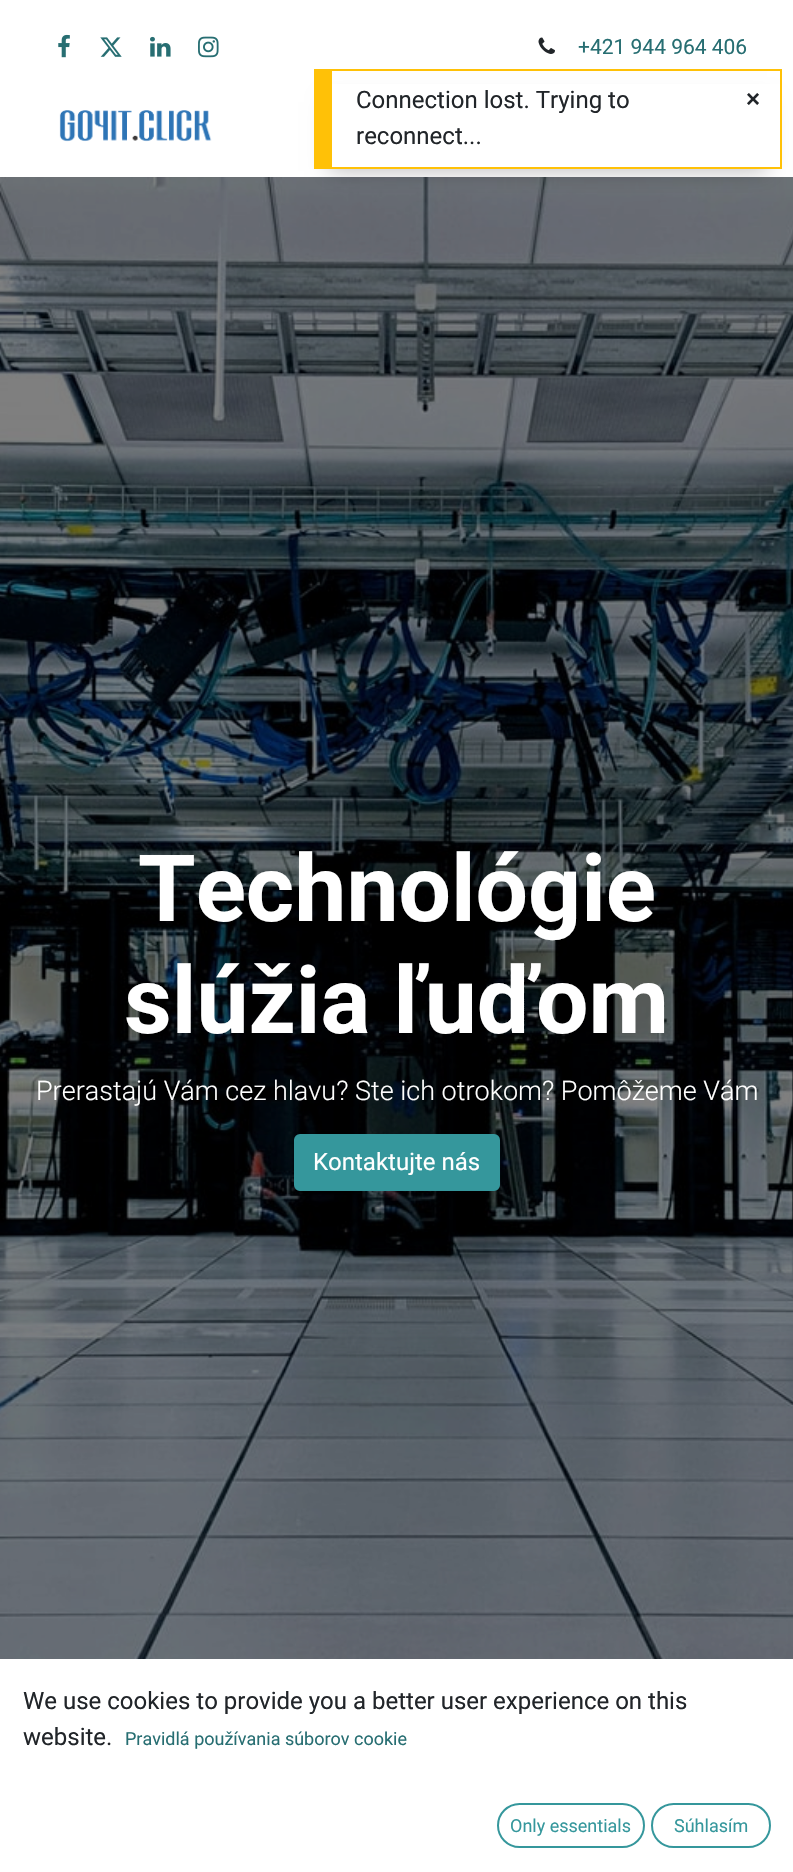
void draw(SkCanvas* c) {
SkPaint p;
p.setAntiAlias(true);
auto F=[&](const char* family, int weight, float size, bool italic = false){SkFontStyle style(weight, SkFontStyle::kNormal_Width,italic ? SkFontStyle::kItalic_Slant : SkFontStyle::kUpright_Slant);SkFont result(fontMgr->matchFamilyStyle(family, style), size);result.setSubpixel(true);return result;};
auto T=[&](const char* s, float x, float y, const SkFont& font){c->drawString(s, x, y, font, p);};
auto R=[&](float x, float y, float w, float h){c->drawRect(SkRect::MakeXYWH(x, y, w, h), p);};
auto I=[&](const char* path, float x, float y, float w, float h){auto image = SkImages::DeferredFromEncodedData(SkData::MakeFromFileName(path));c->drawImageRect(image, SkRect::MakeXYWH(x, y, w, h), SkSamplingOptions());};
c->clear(0xffffffff);
I("1.png",58,34,12,24);
I("2.png",100,37,22,20);
I("3.png",150,36,21,21);
I("4.png",198,36,21,22);
I("5.png",538,37,17,17);
auto f1 = F("Roboto",400,21);
p.setColor(0xff276e72);
T("+421 944 964 406",578,54,f1);
I("6.png",59,110,153,32);
I("7.png",0,177,793,1482);
auto f2 = F("Roboto",700,93);
p.setColor(0xffffffff);
T("Technológie",138,921,f2);
T("slúžia ľuďom",124,1033,f2);
auto f3 = F("Roboto",300,27);
T("Prerastajú Vám cez hlavu? Ste ich otrokom? Pomôžeme Vám",36,1100,f3);
p.setColor(0xff35979c);
c->drawRoundRect(SkRect::MakeXYWH(295,1135,204,55),5,5,p);
p.setStroke(true);
p.setStrokeWidth(2);
c->drawRoundRect(SkRect::MakeXYWH(295,1135,204,55),5,5,p);
auto f4 = F("Roboto",400,24);
p.setStroke(false);
p.setColor(0xffffffff);
T("Kontaktujte nás",313,1170,f4);
p.setColor(0xff212529);
T("We use cookies to provide you a better user experience on this",23,1709,f4);
T("website.",23,1745,f4);
auto f5 = F("Roboto",400,18);
p.setColor(0xff276e72);
T("Pravidlá používania súborov cookie",125,1745,f5);
p.setStroke(true);
p.setColor(0xff35979c);
c->drawRoundRect(SkRect::MakeXYWH(498,1804,146,43),21.5,21.5,p);
p.setStroke(false);
T("Only essentials",510,1832,f5);
p.setStroke(true);
c->drawRoundRect(SkRect::MakeXYWH(652,1804,118,43),21.5,21.5,p);
p.setStroke(false);
T("Súhlasím",674,1832,f5);
p.setColor(0x40000000);
p.setMaskFilter(SkMaskFilter::MakeBlur(kNormal_SkBlurStyle, 10.5));
c->drawRect(SkRect::MakeXYWH(329,102,438,69),p);
p.setMaskFilter(nullptr);
p.setColor(0xffffffff);
R(332,84,448,83);
p.setColor(0xffffc107);
R(332,69,450,2);
R(780,69,2,99);
R(314,167,468,2);
R(314,69,18,98);
p.setColor(0xff212529);
T("Connection lost. Trying to",356,108,f4);
T("reconnect...",356,144,f4);
auto f6 = F("Liberation Sans",700,24);
T("×",746,107,f6);
}
